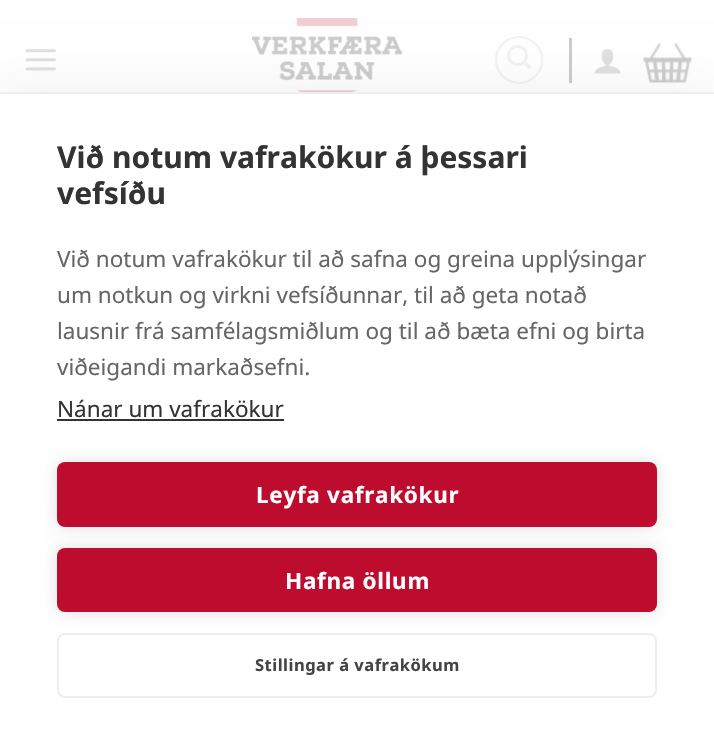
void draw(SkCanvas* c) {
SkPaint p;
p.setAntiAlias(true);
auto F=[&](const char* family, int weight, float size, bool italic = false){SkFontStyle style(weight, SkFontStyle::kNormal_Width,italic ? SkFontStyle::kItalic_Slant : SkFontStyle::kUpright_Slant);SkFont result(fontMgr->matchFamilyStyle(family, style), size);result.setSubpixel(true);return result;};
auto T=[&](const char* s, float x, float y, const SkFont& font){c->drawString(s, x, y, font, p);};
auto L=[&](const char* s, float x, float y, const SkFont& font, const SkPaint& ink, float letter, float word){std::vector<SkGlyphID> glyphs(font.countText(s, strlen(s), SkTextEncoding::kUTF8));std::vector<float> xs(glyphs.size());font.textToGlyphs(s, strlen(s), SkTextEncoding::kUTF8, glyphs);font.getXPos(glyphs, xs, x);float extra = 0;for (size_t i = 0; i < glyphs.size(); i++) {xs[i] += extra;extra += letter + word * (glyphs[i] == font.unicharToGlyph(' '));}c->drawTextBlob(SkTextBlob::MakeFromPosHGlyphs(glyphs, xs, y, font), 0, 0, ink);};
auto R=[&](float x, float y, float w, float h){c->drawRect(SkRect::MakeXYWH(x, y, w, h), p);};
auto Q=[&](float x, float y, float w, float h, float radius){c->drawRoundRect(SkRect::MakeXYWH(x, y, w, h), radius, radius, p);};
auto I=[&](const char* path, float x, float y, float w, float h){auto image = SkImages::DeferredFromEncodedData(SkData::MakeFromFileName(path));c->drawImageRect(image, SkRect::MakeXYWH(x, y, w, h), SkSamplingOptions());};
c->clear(0xffffffff);
I("1.png",25,49,31,22);
I("2.png",252,18,150,74);
p.setStroke(true);
p.setStrokeWidth(2);
p.setColor(0xfff2f2f2);
c->drawCircle(519,60,23,p);
I("3.png",507,45,24,24);
p.setStroke(false);
p.setColor(0xffcccccc);
R(569,38,3,45);
I("4.png",594,49,27,25);
I("5.png",643,43,49,40);
p.setColor(0x1a000000);
p.setMaskFilter(SkMaskFilter::MakeBlur(kNormal_SkBlurStyle, 30));
c->drawRect(SkRect::MakeXYWH(0,107,714,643),p);
p.setMaskFilter(nullptr);
p.setColor(0xffffffff);
R(0,94,714,640);
p.setColor(0xffeeeeee);
R(0,92,714,2);
auto f1 = F("Noto Sans",700,30);
p.setColor(0xff333333);
T("Við notum vafrakökur á þessari",57,168,f1);
T("vefsíðu",57,204,f1);
auto f2 = F("Noto Sans",400,22.5);
p.setColor(0xff666666);
T("Við notum vafrakökur til að safna og greina upplýsingar",57,267,f2);
T("um notkun og virkni vefsíðunnar, til að geta notað",57,303,f2);
T("lausnir frá samfélagsmiðlum og til að bæta efni og birta",57,339,f2);
T("viðeigandi markaðsefni.",57,375,f2);
p.setColor(0xff333333);
T("Nánar um vafrakökur",57,417,f2);
R(57,419,227,2);
p.setColor(0x1f000000);
p.setMaskFilter(SkMaskFilter::MakeBlur(kNormal_SkBlurStyle, 7.5));
c->drawRoundRect(SkRect::MakeXYWH(57,462,600,65),8,8,p);
p.setMaskFilter(nullptr);
p.setColor(0xffbd0c2e);
Q(57,462,600,65,8);
auto f3 = F("Noto Sans",700,22.5);
p.setColor(0xffffffff);
L("Leyfa vafrakökur",256,503,f3,p,.7,0);
p.setColor(0x1f000000);
p.setMaskFilter(SkMaskFilter::MakeBlur(kNormal_SkBlurStyle, 7.5));
c->drawRoundRect(SkRect::MakeXYWH(57,548,600,64),8,8,p);
p.setMaskFilter(nullptr);
p.setColor(0xffbd0c2e);
Q(57,548,600,64,8);
p.setColor(0xffffffff);
L("Hafna öllum",285,589,f3,p,.7,0);
p.setStroke(true);
p.setColor(0xffeeeeee);
c->drawRoundRect(SkRect::MakeXYWH(58,634,598,63),7,7,p);
auto f4 = F("Noto Sans",700,16.5);
p.setStroke(false);
p.setColor(0xff444444);
L("Stillingar á vafrakökum",255,671,f4,p,.5,0);
}
